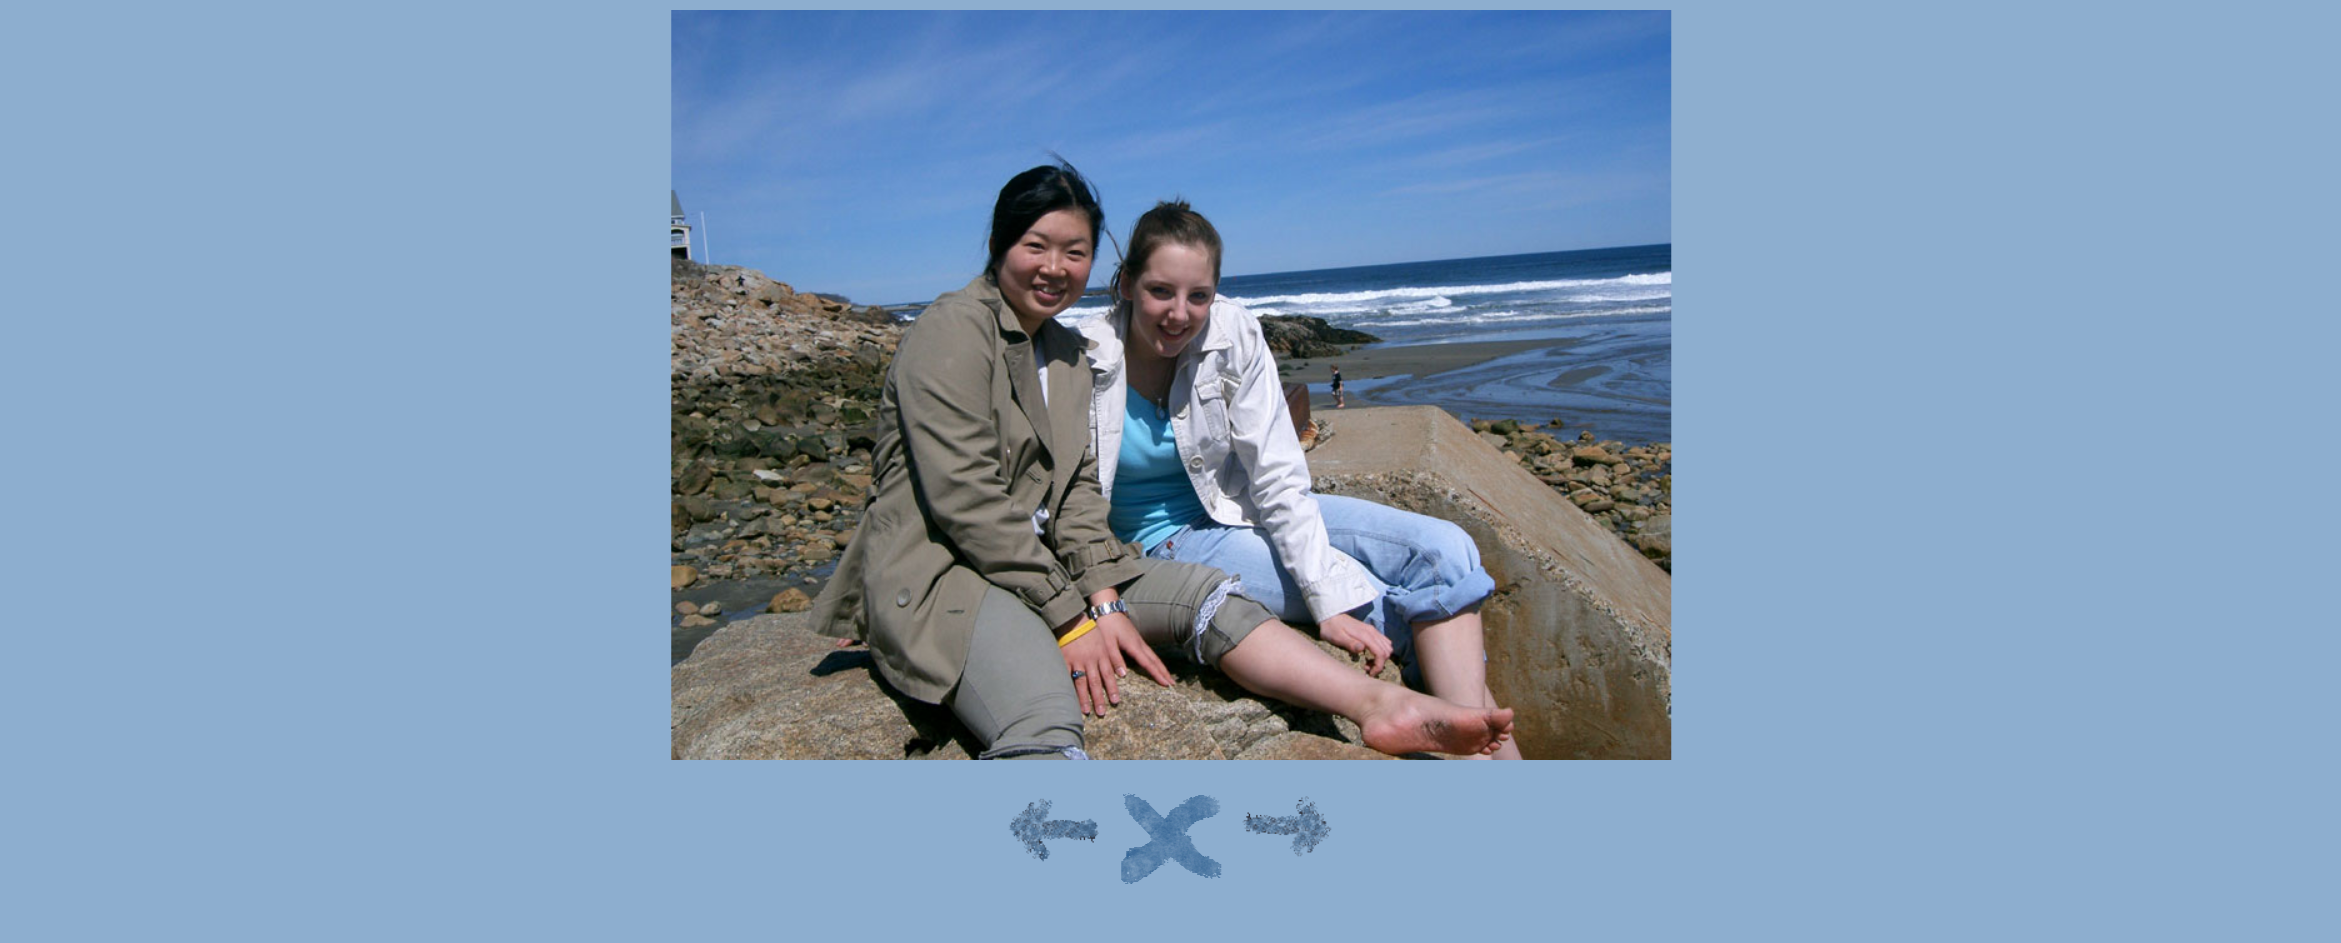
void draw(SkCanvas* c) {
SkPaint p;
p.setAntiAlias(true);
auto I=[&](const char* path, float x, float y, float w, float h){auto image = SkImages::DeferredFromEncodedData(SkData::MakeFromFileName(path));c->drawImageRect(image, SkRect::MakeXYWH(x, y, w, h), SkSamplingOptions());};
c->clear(0xff8daecf);
I("1.png",671,10,1001,750);
I("2.png",1008,798,91,64);
I("3.png",1121,793,101,91);
I("4.png",1242,796,90,61);
}
